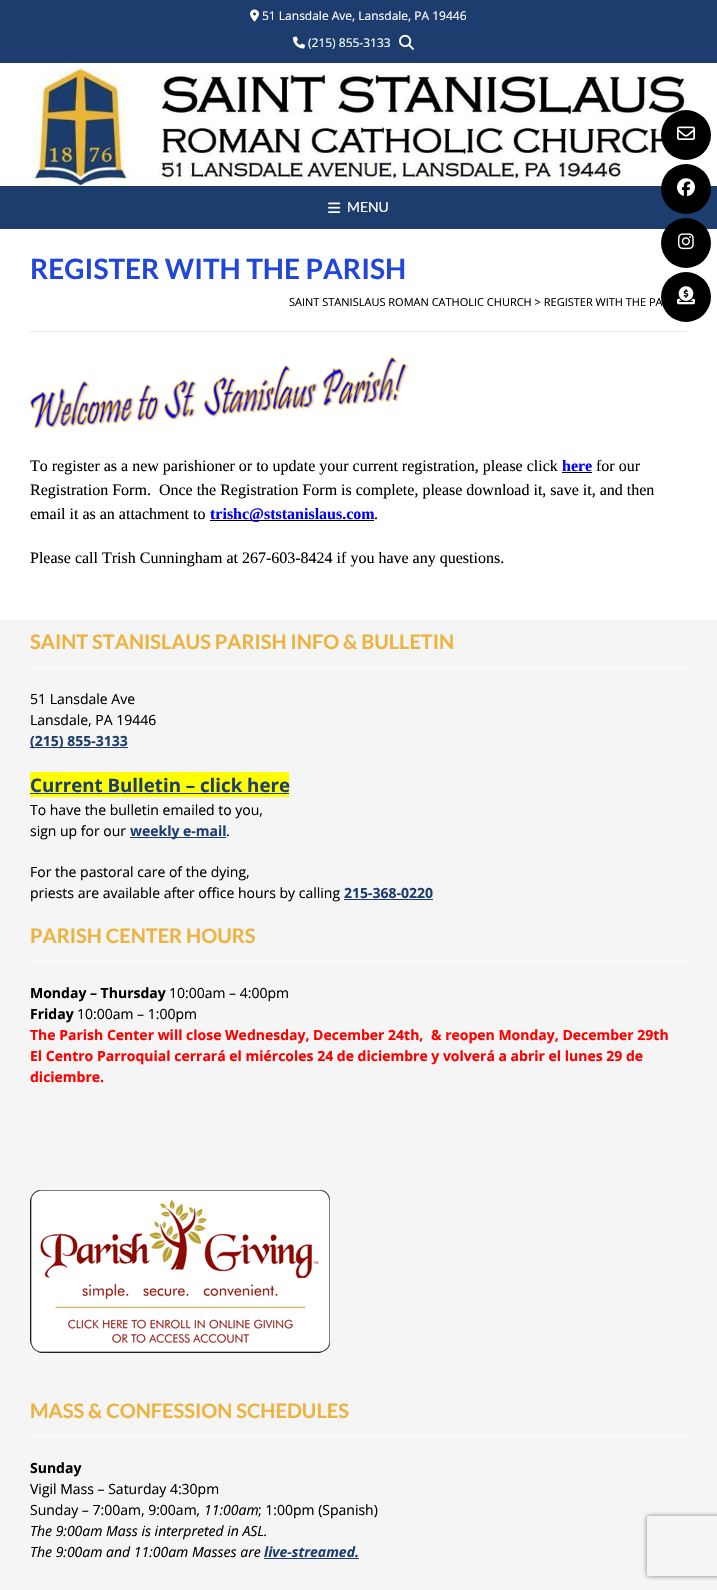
void draw(SkCanvas* c) {
SkPaint p;
p.setAntiAlias(true);
auto F=[&](const char* family, int weight, float size, bool italic = false){SkFontStyle style(weight, SkFontStyle::kNormal_Width,italic ? SkFontStyle::kItalic_Slant : SkFontStyle::kUpright_Slant);SkFont result(fontMgr->matchFamilyStyle(family, style), size);result.setSubpixel(true);return result;};
auto T=[&](const char* s, float x, float y, const SkFont& font){c->drawString(s, x, y, font, p);};
auto R=[&](float x, float y, float w, float h){c->drawRect(SkRect::MakeXYWH(x, y, w, h), p);};
auto I=[&](const char* path, float x, float y, float w, float h){auto image = SkImages::DeferredFromEncodedData(SkData::MakeFromFileName(path));c->drawImageRect(image, SkRect::MakeXYWH(x, y, w, h), SkSamplingOptions());};
auto P=[&](const char* data, bool evenOdd = false){SkPath result = *SkParsePath::FromSVGString(data);if (evenOdd) result.setFillType(SkPathFillType::kEvenOdd);return result;};
c->clear(0xffffffff);
p.setColor(0xff1d3d6e);
R(0,0,717,62);
p.setColor(0xff1b3865);
R(0,62,717,1);
I("1.png",250,9,9,13);
auto f1 = F("Open Sans",400,12);
p.setColor(0xffffffff);
T("51 Lansdale Ave, Lansdale, PA 19446",262,20,f1);
I("2.png",293,36,12,13);
T("(215) 855-3133",308,47,f1);
I("3.png",399,34,15,16);
I("4.png",30,63,657,123);
p.setColor(0xff1d3d6e);
R(0,187,717,42);
p.setColor(0xff1b3865);
R(0,186,717,1);
I("5.png",328,202,13,11);
auto f2 = F("Lato",400,14);
p.setColor(0xffffffff);
T("MENU",347,212,f2);
p.setColor(0xffebebeb);
R(30,331,657,1);
auto f3 = F("Lato",700,28);
p.setColor(0xff2247d8);
T("REGISTER WITH THE PARISH",30,279,f3);
auto f4 = F("Open Sans",400,11);
p.setColor(0xff000000);
T("SAINT STANISLAUS ROMAN CATHOLIC CHURCH > REGISTER WITH THE PA",289,306,f4);
I("6.png",30,357,378,72);
auto f5 = F("Liberation Serif",400,16);
T("To register as a new parishioner or to update your current registration, please click",30,471,f5);
auto f6 = F("Liberation Serif",700,16);
p.setColor(0xff0000ff);
T("here",562,471,f6);
p.setColor(0xff000000);
R(562,472,30,1);
T("for our",596,471,f5);
T("Registration Form.  Once the Registration Form is complete, please download it, save it, and then",30,495,f5);
T("email it as an attachment to",30,519,f5);
R(210,520,164,1);
p.setColor(0xff0000ff);
T("trishc@ststanislaus.com",210,519,f6);
p.setColor(0xff000000);
T(".",374,519,f5);
T("Please call Trish Cunningham at 267-603-8424 if you have any questions.",30,563,f5);
p.setColor(0xfff5f5f5);
R(0,620,717,970);
p.setColor(0xffffffff);
R(30,667,657,1);
auto f7 = F("Lato",700,20);
p.setColor(0xffedb33e);
T("SAINT STANISLAUS PARISH INFO & BULLETIN",30,649,f7);
auto f8 = F("Open Sans",400,14);
p.setColor(0xff000000);
T("51 Lansdale Ave",30,704,f8);
T("Lansdale, PA 19446",30,725,f8);
p.setColor(0xff1d3d6e);
R(30,747,98,1);
auto f9 = F("Open Sans",700,14);
T("(215) 855-3133",30,746,f9);
p.setColor(0xffffff00);
R(30,772,259,25);
auto f10 = F("Open Sans",700,18.7);
p.setColor(0xff1d3d6e);
T("Current Bulletin – click here",30,792,f10);
R(30,793,259,1);
p.setColor(0xff000000);
T("To have the bulletin emailed to you,",30,815,f8);
T("sign up for our",30,836,f8);
p.setColor(0xff1d3d6e);
R(130,837,96,1);
T("weekly e-mail",130,836,f9);
p.setColor(0xff000000);
T(".",226,836,f8);
T("For the pastoral care of the dying,",30,877,f8);
T("priests are available after office hours by calling",30,898,f8);
p.setColor(0xff1d3d6e);
T("215-368-0220",344,898,f9);
R(344,899,89,1);
p.setColor(0xffffffff);
R(30,961,657,1);
p.setColor(0xffedb33e);
T("PARISH CENTER HOURS",30,943,f7);
p.setColor(0xff000000);
T("Monday – Thursday",30,998,f9);
T("10:00am – 4:00pm",169,998,f8);
T("Friday",30,1019,f9);
T("10:00am – 1:00pm",77,1019,f8);
p.setColor(0xffff0000);
T("The Parish Center will close Wednesday, December 24th,",30,1040,f9);
T("& reopen Monday, December 29th",431,1040,f9);
T("El Centro Parroquial cerrará el miércoles 24 de diciembre y volverá a abrir el lunes 29 de",30,1061,f9);
T("diciembre.",30,1082,f9);
I("7.png",30,1190,300,163);
p.setColor(0xffffffff);
R(30,1436,657,1);
p.setColor(0xffedb33e);
T("MASS & CONFESSION SCHEDULES",30,1418,f7);
p.setColor(0xff000000);
T("Sunday",30,1473,f9);
T("Vigil Mass – Saturday 4:30pm",30,1494,f8);
T("Sunday – 7:00am, 9:00am",30,1515,f8);
auto f11 = F("Open Sans",400,14,true);
T(", 11:00am",197,1515,f11);
T("; 1:00pm (Spanish)",258,1515,f8);
T("The 9:00am Mass is interpreted in ASL.",30,1536,f11);
T("The 9:00am and 11:00am Masses are",30,1557,f11);
auto f12 = F("Open Sans",700,14,true);
p.setColor(0xff1d3d6e);
T("live-streamed.",264,1557,f12);
R(264,1558,95,1);
p.setColor(0xff000000);
c->drawCircle(686,135,25,p);
I("8.png",677,126,18,14);
c->drawCircle(686,189,25,p);
I("9.png",677,178,18,19);
c->drawCircle(686,243,25,p);
I("10.png",678,233,16,17);
c->drawCircle(686,297,25,p);
I("11.png",677,286,18,19);
c->save();
c->clipPath(P("M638 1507h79v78h-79zm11 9h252c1 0 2 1 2 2v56c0 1-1 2-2 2h-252c-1 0-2-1-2-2v-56c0-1 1-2 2-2z",true),true);
p.setColor(0xff808080);
p.setMaskFilter(SkMaskFilter::MakeBlur(kNormal_SkBlurStyle, 2.5));
c->drawRoundRect(SkRect::MakeXYWH(647,1516,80,60),2,2,p);
p.setMaskFilter(nullptr);
c->restore();
}
